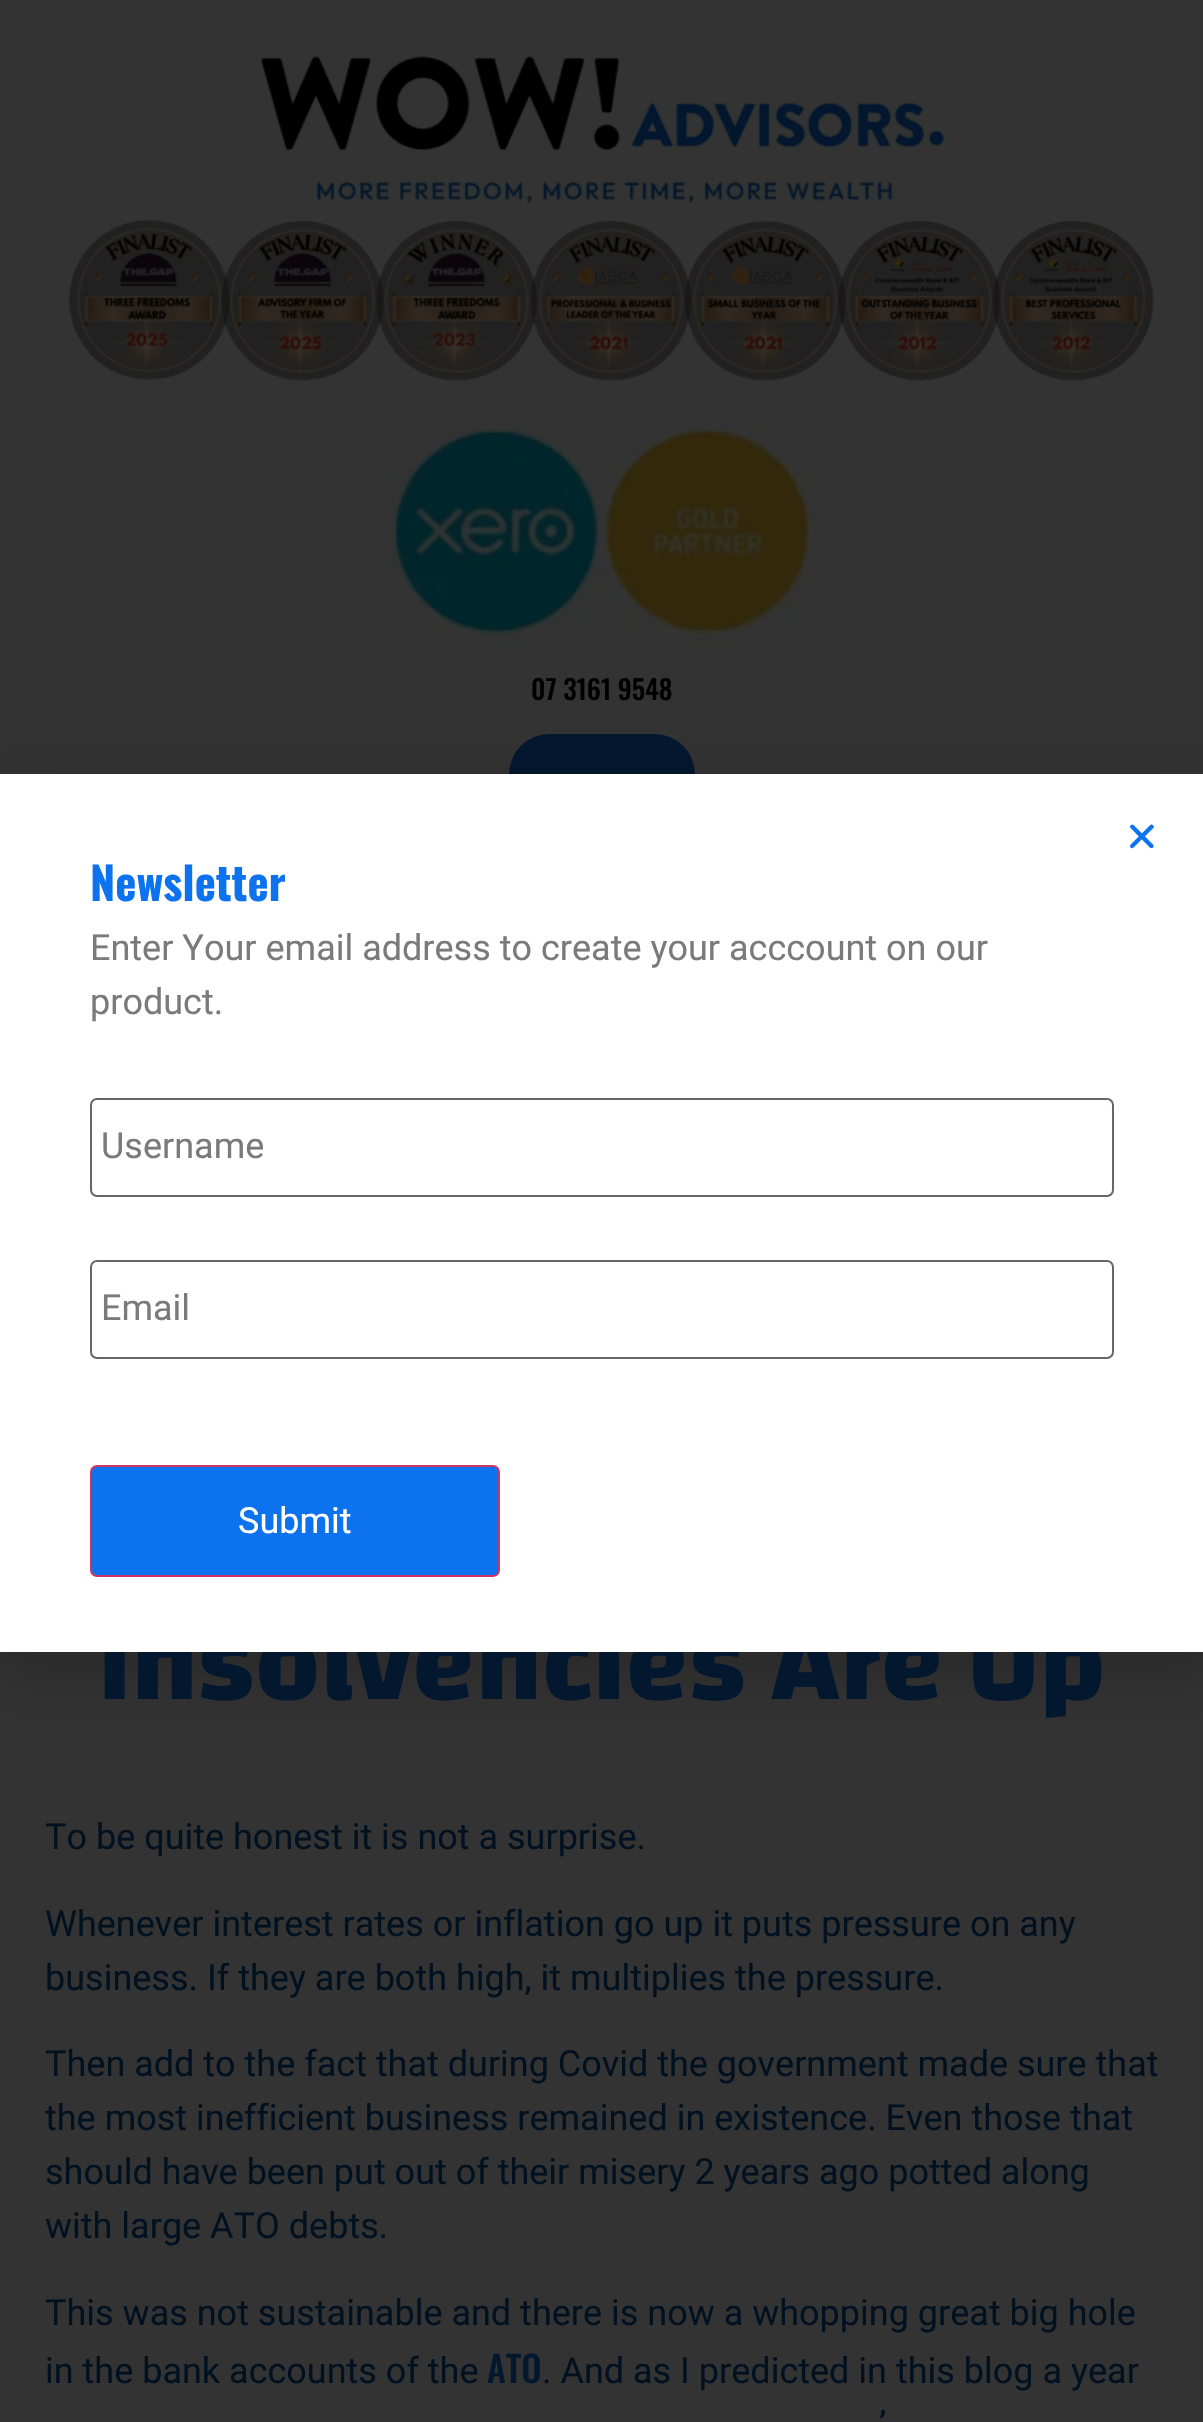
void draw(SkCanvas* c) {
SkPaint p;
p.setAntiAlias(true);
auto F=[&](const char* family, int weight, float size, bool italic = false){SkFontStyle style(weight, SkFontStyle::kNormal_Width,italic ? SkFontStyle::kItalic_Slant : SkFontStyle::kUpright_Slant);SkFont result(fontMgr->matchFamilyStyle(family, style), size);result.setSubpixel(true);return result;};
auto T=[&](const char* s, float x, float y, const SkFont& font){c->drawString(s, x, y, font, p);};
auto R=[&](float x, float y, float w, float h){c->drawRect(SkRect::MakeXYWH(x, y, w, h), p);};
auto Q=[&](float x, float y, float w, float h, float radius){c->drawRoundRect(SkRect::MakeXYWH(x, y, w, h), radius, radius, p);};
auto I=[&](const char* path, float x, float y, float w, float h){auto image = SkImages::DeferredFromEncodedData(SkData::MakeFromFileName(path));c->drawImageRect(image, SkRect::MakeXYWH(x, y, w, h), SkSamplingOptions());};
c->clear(0xff333333);
I("1.png",260,56,686,148);
I("2.png",68,219,1086,163);
I("3.png",388,424,426,224);
auto f1 = F("Oswald",500,27);
p.setColor(0xff000000);
T("07 3161 9548",531,700,f1);
p.setColor(0xff03172f);
Q(509,734,186,81,40.5);
p.setColor(0x33000000);
p.setMaskFilter(SkMaskFilter::MakeBlur(kNormal_SkBlurStyle, 26));
c->drawRect(SkRect::MakeXYWH(-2,785,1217,891),p);
p.setMaskFilter(nullptr);
auto f2 = F("Changa",700,112.5);
p.setColor(0xff03172f);
T("Insolvencies Are Up",98,1699,f2);
p.setColor(0xffffffff);
R(0,774,1203,878);
I("4.png",1130,824,24,25);
auto f3 = F("Oswald",700,45);
p.setColor(0xff0d72ed);
T("Newsletter",90,901,f3);
auto f4 = F("Roboto",400,36);
p.setColor(0xff7a7a7a);
T("Enter Your email address to create your acccount on our",90,960,f4);
T("product.",90,1014,f4);
p.setStroke(true);
p.setStrokeWidth(2);
p.setColor(0xff666666);
c->drawRoundRect(SkRect::MakeXYWH(91,1099,1022,97),6,6,p);
p.setStroke(false);
p.setColor(0xff7a7a7a);
T("Username",101,1158,f4);
p.setStroke(true);
p.setColor(0xff666666);
c->drawRoundRect(SkRect::MakeXYWH(91,1261,1022,97),6,6,p);
p.setStroke(false);
p.setColor(0xff7a7a7a);
T("Email",101,1320,f4);
p.setColor(0xff0d72ed);
c->drawRoundRect(SkRect::MakeXYWH(91,1466,408,110),6,6,p);
p.setStroke(true);
p.setColor(0xffcc3366);
c->drawRoundRect(SkRect::MakeXYWH(91,1466,408,110),6,6,p);
p.setStroke(false);
p.setColor(0xffffffff);
T("Submit",238,1533,f4);
p.setColor(0xff011120);
T("To be quite honest it is not a surprise.",45,1849,f4);
T("Whenever interest rates or inflation go up it puts pressure on any",45,1936,f4);
T("business. If they are both high, it multiplies the pressure.",45,1990,f4);
T("Then add to the fact that during Covid the government made sure that",45,2076,f4);
T("the most inefficient business remained in existence. Even those that",45,2130,f4);
T("should have been put out of their misery 2 years ago potted along",45,2184,f4);
T("with large ATO debts.",45,2238,f4);
T("This was not sustainable and there is now a whopping great big hole",45,2325,f4);
T("in the bank accounts of the",45,2383,f4);
auto f5 = F("Oswald",500,36);
p.setColor(0xff03172f);
T("ATO",487,2383,f5);
p.setColor(0xff011120);
T(". And as I predicted in this blog a year",542,2383,f4);
T("’",879,2437,f4);
}
